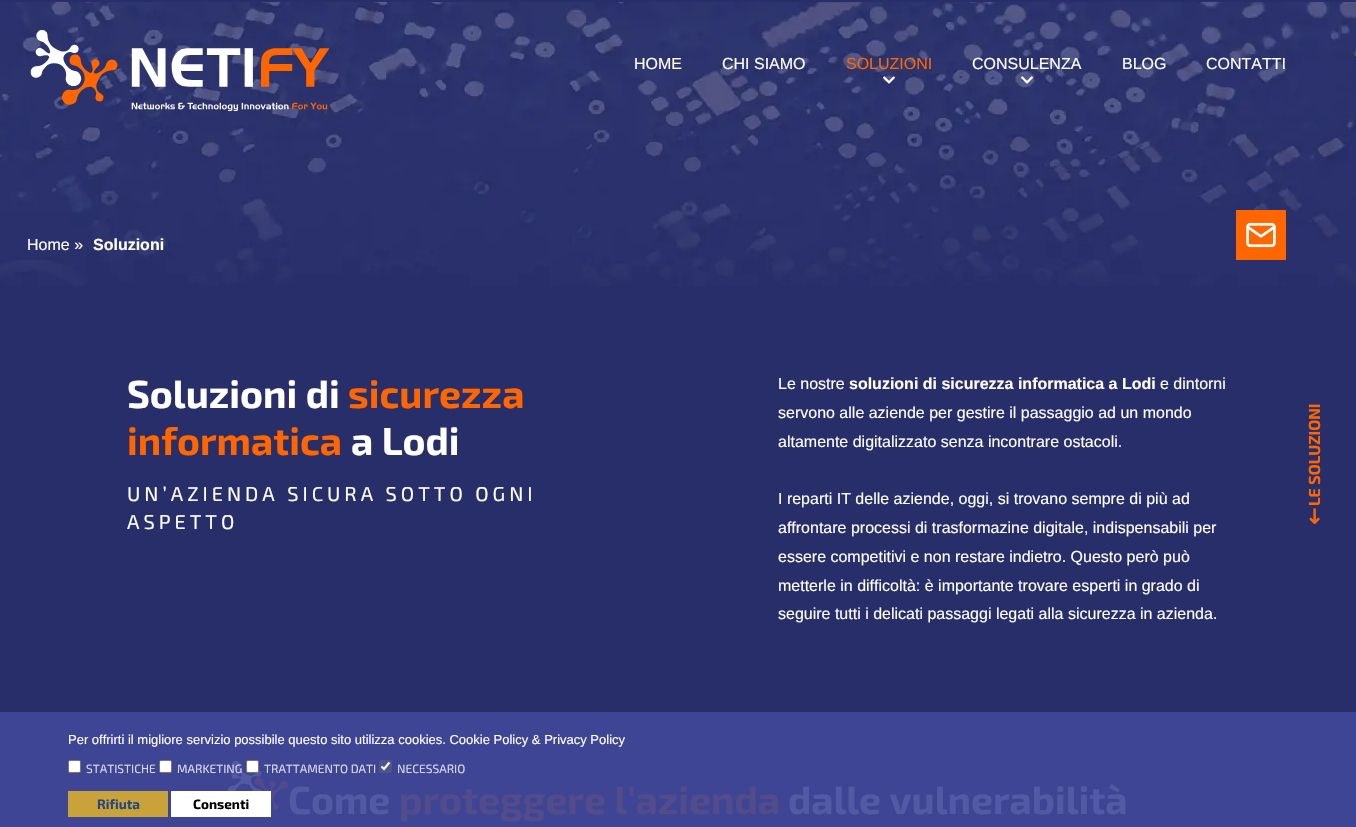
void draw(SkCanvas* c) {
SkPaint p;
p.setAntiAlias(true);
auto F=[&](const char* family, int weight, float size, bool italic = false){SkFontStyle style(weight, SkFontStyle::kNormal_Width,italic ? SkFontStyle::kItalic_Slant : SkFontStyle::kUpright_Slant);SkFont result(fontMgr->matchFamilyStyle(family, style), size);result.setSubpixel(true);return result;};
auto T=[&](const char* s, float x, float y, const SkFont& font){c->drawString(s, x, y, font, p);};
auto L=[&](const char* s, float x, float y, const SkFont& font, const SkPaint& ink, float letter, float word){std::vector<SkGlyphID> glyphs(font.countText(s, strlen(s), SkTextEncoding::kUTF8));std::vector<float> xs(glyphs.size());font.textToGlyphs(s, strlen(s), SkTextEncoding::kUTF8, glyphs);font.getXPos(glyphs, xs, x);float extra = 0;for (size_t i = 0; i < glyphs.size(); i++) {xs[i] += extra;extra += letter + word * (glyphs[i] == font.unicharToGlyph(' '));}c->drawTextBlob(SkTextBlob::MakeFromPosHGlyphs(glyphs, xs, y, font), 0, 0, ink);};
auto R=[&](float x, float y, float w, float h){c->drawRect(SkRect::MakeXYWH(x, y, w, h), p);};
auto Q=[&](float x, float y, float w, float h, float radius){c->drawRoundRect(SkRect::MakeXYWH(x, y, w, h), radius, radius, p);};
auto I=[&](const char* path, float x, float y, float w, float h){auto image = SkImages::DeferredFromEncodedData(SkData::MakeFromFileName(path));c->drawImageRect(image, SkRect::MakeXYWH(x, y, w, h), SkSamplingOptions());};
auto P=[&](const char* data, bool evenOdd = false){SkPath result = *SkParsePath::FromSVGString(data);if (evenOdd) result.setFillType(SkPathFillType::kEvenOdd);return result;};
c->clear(0xff282e69);
p.setColor(0xff3e4594);
R(0,712,1356,115);
I("1.png",0,2,1356,284);
I("2.png",30,30,300,81);
auto f1 = F("Arimo",400,16);
p.setColor(0xffffffff);
T("HOME",634,69,f1);
T("CHI SIAMO",722,69,f1);
p.setColor(0xffff6600);
T("SOLUZIONI",846,69,f1);
I("3.png",883,76,12,8);
p.setColor(0xffffffff);
T("CONSULENZA",972,69,f1);
I("4.png",1021,76,12,8);
T("BLOG",1122,69,f1);
T("CONTATTI",1206,69,f1);
T("Home »",27,250,f1);
auto f2 = F("Arimo",700,16);
T("Soluzioni",93,250,f2);
I("5.png",1236,210,50,50);
auto f3 = F("Exo 2",700,39);
T("Soluzioni di",127,408,f3);
p.setColor(0xffff6600);
T("sicurezza",348,408,f3);
T("informatica",127,455,f3);
p.setColor(0xffffffff);
T("a Lodi",351,455,f3);
auto f4 = F("Exo 2",400,20);
L("UN’AZIENDA SICURA SOTTO OGNI",127,501,f4,p,4,0);
L("ASPETTO",127,529,f4,p,4,0);
T("Le nostre",778,389,f1);
T("soluzioni di sicurezza informatica a Lodi",849,389,f2);
T("e dintorni",1160,389,f1);
T("servono alle aziende per gestire il passaggio ad un mondo",778,418,f1);
T("altamente digitalizzato senza incontrare ostacoli.",778,447,f1);
T("I reparti IT delle aziende, oggi, si trovano sempre di più ad",778,504,f1);
T("affrontare processi di trasformazine digitale, indispensabili per",778,533,f1);
T("essere competitivi e non restare indietro. Questo però può",778,562,f1);
T("metterle in difficoltà: è importante trovare esperti in grado di",778,591,f1);
T("seguire tutti i delicati passaggi legati alla sicurezza in azienda.",778,619,f1);
auto f5 = F("Exo 2",700,16);
p.setColor(0xffff6600);
c->save();
c->rotate(-90,1320,506);
T("LE SOLUZIONI",1320,506,f5);
c->restore();
I("6.png",1309,508,11,16);
I("7.png",228,761,60,49);
p.setColor(0xff535aa3);
T("Come",288,814,f3);
p.setColor(0xff534b8a);
T("proteggere l'azienda",399,814,f3);
p.setColor(0xff535aa3);
T("dalle vulnerabilità",788,814,f3);
auto f6 = F("Arimo",400,13);
p.setColor(0xffffffff);
T("Per offrirti il migliore servizio possibile questo sito utilizza cookies. Cookie Policy & Privacy Policy",68,744,f6);
c->drawRoundRect(SkRect::MakeXYWH(68.5,760.5,12,12),1.5,1.5,p);
p.setStroke(true);
p.setStrokeWidth(1);
p.setColor(0xff767676);
c->drawRoundRect(SkRect::MakeXYWH(68.5,760.5,12,12),1.5,1.5,p);
auto f7 = F("Exo 2",400,12);
p.setStroke(false);
p.setColor(0xffd8daea);
T("STATISTICHE",86,773,f7);
p.setColor(0xffffffff);
c->drawRoundRect(SkRect::MakeXYWH(159.5,760.5,12,12),1.5,1.5,p);
p.setStroke(true);
p.setColor(0xff767676);
c->drawRoundRect(SkRect::MakeXYWH(159.5,760.5,12,12),1.5,1.5,p);
p.setStroke(false);
p.setColor(0xffd8daea);
T("MARKETING",177,773,f7);
p.setColor(0xffffffff);
c->drawRoundRect(SkRect::MakeXYWH(246.5,760.5,12,12),1.5,1.5,p);
p.setStroke(true);
p.setColor(0xff767676);
c->drawRoundRect(SkRect::MakeXYWH(246.5,760.5,12,12),1.5,1.5,p);
p.setStroke(false);
p.setColor(0xffd8daea);
T("TRATTAMENTO DATI",264,773,f7);
p.setColor(0xff4f548b);
Q(379,760,13,13,2);
p.setStroke(true);
p.setStrokeWidth(2.1);
p.setColor(0xffffffff);
c->drawPath(P("M381.5 766.5l2.5 2.5l5.5-6.5"),p);
p.setStroke(false);
p.setColor(0xffd8daea);
T("NECESSARIO",397,773,f7);
p.setColor(0xffc9a239);
R(68,791,100,26);
auto f8 = F("Exo 2",700,13.5);
p.setColor(0xff244784);
T("Rifiuta",97,809,f8);
p.setColor(0xffffffff);
R(171,791,100,26);
p.setColor(0xff000000);
T("Consenti",193,809,f8);
}
